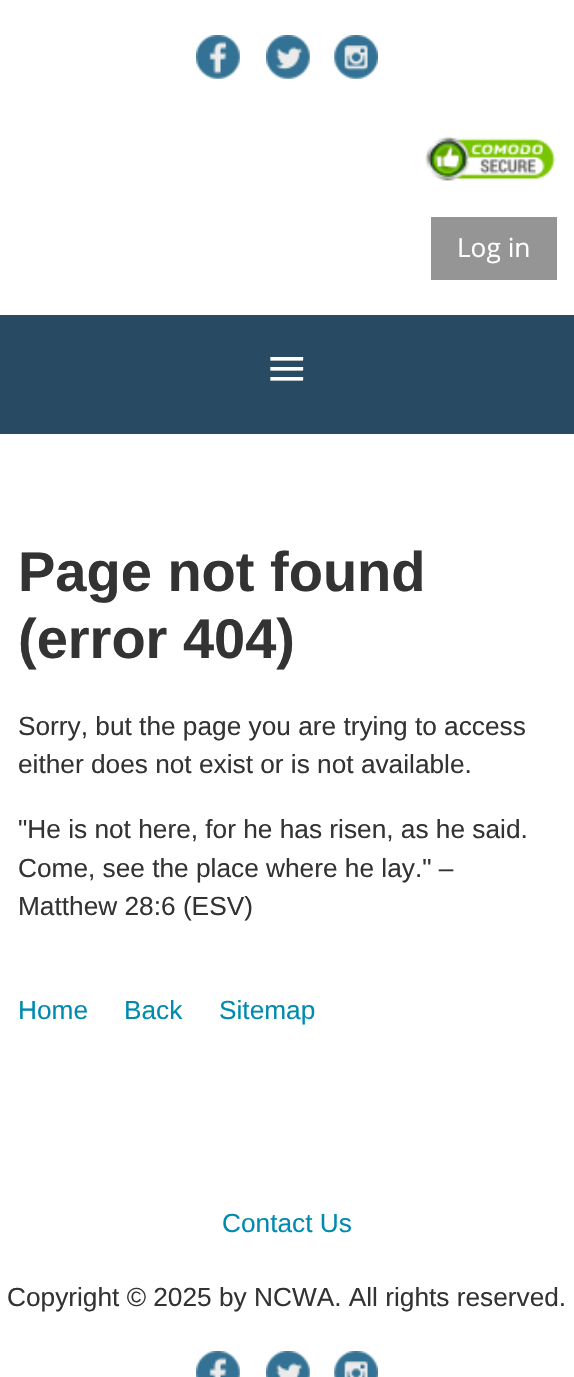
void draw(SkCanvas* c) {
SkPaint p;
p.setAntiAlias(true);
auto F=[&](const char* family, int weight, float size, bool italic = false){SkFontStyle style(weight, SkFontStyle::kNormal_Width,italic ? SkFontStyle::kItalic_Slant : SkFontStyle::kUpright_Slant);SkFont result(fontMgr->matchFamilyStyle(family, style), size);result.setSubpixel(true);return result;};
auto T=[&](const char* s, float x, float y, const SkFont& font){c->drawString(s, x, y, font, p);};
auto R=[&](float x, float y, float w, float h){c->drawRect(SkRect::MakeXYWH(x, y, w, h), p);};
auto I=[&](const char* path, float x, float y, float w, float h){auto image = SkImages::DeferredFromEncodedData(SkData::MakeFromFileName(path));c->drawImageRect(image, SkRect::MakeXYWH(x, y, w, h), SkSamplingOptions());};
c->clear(0xffffffff);
I("1.png",196,35,44,44);
I("2.png",266,35,44,44);
I("3.png",334,35,44,44);
I("4.png",425,136,131,45);
p.setColor(0xff959595);
R(431,217,126,63);
auto f1 = F("Open Sans",400,26.25);
p.setColor(0xffffffff);
T("Log in",457,257,f1);
p.setColor(0xff284b63);
R(0,315,574,119);
auto f2 = F("Liberation Serif",400,70);
p.setColor(0xffffffff);
T("≡",267,392,f2);
auto f3 = F("Liberation Sans",700,56);
p.setColor(0xff333333);
T("Page not found",18,591,f3);
T("(error 404)",18,658,f3);
auto f4 = F("Liberation Sans",400,26.25);
T("Sorry, but the page you are trying to access",18,735,f4);
T("either does not exist or is not available.",18,773,f4);
T("\"He is not here, for he has risen, as he said.",18,838,f4);
T("Come, see the place where he lay.\" –",18,877,f4);
T("Matthew 28:6 (ESV)",18,915,f4);
p.setColor(0xff008bae);
T("Home",18,1019,f4);
T("Back",124,1019,f4);
T("Sitemap",219,1019,f4);
T("Contact Us",222,1232,f4);
p.setColor(0xff333333);
T("Copyright © 2025 by NCWA. All rights reserved.",7,1306,f4);
I("5.png",196,1351,44,26);
I("6.png",266,1351,44,26);
I("7.png",334,1351,44,26);
}
